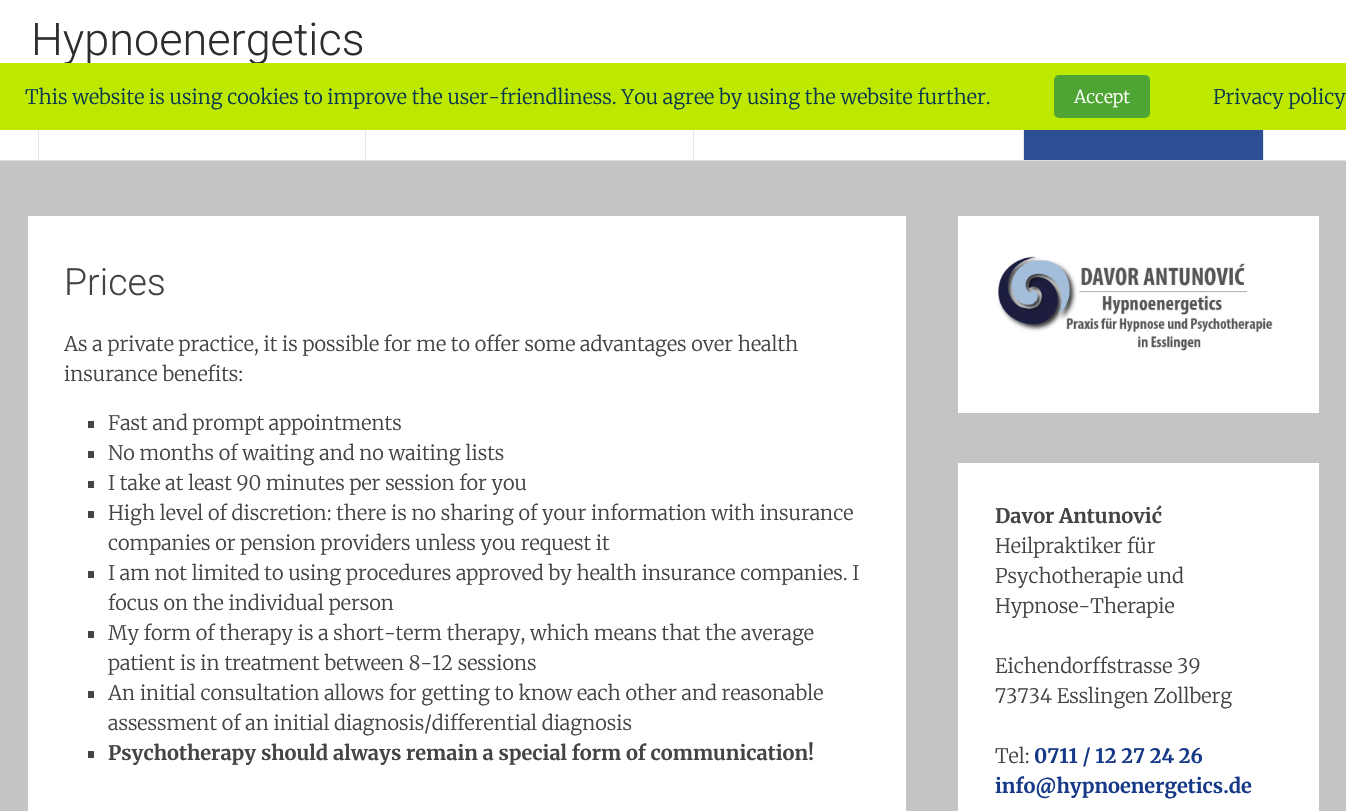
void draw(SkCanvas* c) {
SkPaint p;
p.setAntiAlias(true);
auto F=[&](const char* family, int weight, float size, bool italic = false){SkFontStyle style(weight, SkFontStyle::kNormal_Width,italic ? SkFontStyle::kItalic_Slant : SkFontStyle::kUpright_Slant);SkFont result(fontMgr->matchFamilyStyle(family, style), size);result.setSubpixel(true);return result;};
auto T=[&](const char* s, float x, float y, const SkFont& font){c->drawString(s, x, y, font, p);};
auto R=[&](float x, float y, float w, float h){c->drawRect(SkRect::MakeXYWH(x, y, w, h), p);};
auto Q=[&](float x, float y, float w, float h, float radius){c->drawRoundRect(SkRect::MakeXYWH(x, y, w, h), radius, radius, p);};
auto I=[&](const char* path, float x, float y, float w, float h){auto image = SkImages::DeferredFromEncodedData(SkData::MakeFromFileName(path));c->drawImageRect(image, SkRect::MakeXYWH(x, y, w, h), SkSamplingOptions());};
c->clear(0xffffffff);
p.setColor(0xffdee1e3);
R(0,160,1346,1);
auto f1 = F("Roboto",300,45);
p.setColor(0xff2d2d2d);
T("Hypnoenergetics",31,55,f1);
p.setColor(0xffe4e7e9);
R(38,130,1,30);
R(365,130,1,30);
R(693,130,1,30);
R(1023,130,1,30);
p.setColor(0xff2d4e93);
R(1024,130,239,30);
p.setColor(0xffe4e7e9);
R(1263,130,1,30);
p.setColor(0xffc4c4c4);
R(0,161,1346,650);
p.setColor(0xffffffff);
R(28,216,878,595);
auto f2 = F("Roboto",300,37.5);
p.setColor(0xff444444);
T("Prices",64,295,f2);
auto f3 = F("Merriweather",300,20);
T("As a private practice, it is possible for me to offer some advantages over health",64,351,f3);
T("insurance benefits:",64,381,f3);
R(88,421,6,7);
T("Fast and prompt appointments",108,430,f3);
R(88,451,6,7);
T("No months of waiting and no waiting lists",108,460,f3);
R(88,481,6,7);
T("I take at least 90 minutes per session for you",108,490,f3);
R(88,511,6,7);
T("High level of discretion: there is no sharing of your information with insurance",108,520,f3);
T("companies or pension providers unless you request it",108,550,f3);
R(88,571,6,7);
T("I am not limited to using procedures approved by health insurance companies. I",108,580,f3);
T("focus on the individual person",108,610,f3);
R(88,631,6,7);
T("My form of therapy is a short-term therapy, which means that the average",108,640,f3);
T("patient is in treatment between 8-12 sessions",108,670,f3);
R(88,691,6,7);
T("An initial consultation allows for getting to know each other and reasonable",108,700,f3);
T("assessment of an initial diagnosis/differential diagnosis",108,730,f3);
R(88,751,6,7);
auto f4 = F("Merriweather",700,20);
T("Psychotherapy should always remain a special form of communication!",108,760,f4);
p.setColor(0xffffffff);
R(958,216,361,197);
I("1.png",996,254,277,97);
R(958,463,361,348);
p.setColor(0xff444444);
T("Davor Antunović",995,523,f4);
T("Heilpraktiker für",995,553,f3);
T("Psychotherapie und",995,583,f3);
T("Hypnose-Therapie",995,613,f3);
T("Eichendorffstrasse 39",995,673,f3);
T("73734 Esslingen Zollberg",995,703,f3);
T("Tel:",995,763,f3);
p.setColor(0xff163a87);
T("0711 / 12 27 24 26",1034,763,f4);
T("info@hypnoenergetics.de",995,793,f4);
p.setColor(0xffbde800);
R(0,63,1346,67);
p.setColor(0xff0b384f);
T("This website is using cookies to improve the user-friendliness. You agree by using the website further.",25,104,f3);
p.setColor(0xff4fa533);
Q(1054,75,96,43,5);
auto f5 = F("Merriweather",300,17.5);
p.setColor(0xffffffff);
T("Accept",1074,103,f5);
p.setColor(0xff0b384f);
T("Privacy policy",1213,104,f3);
}
